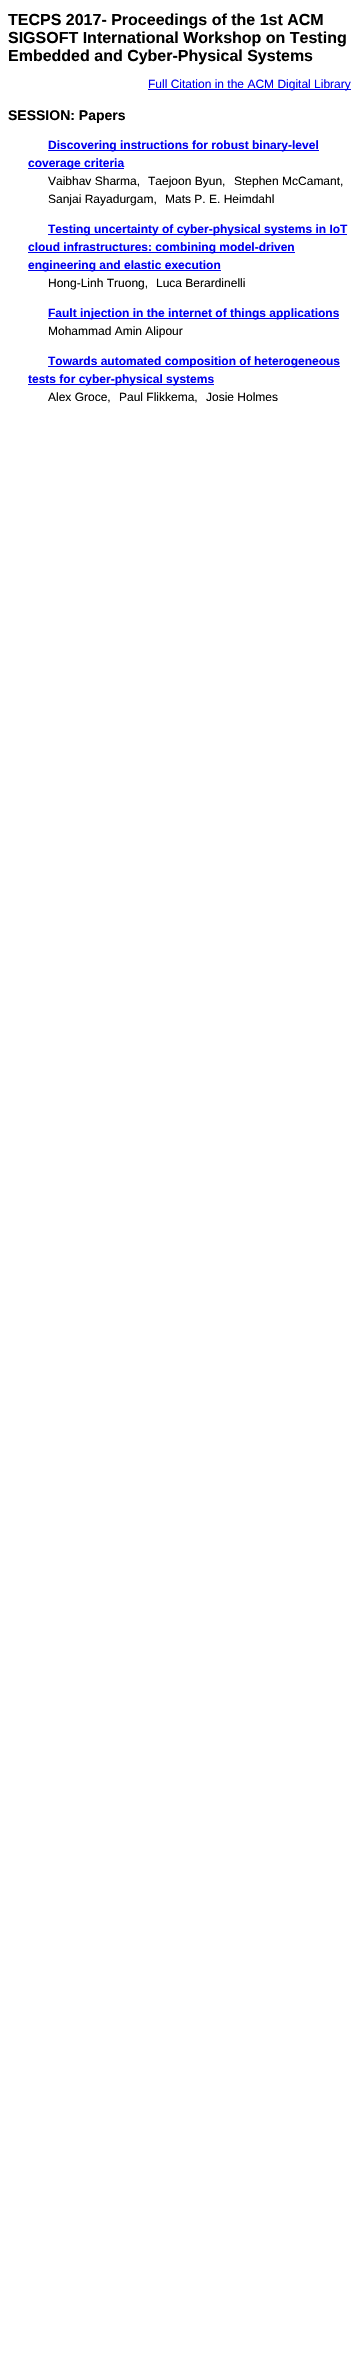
void draw(SkCanvas* c) {
SkPaint p;
p.setAntiAlias(true);
auto F=[&](const char* family, int weight, float size, bool italic = false){SkFontStyle style(weight, SkFontStyle::kNormal_Width,italic ? SkFontStyle::kItalic_Slant : SkFontStyle::kUpright_Slant);SkFont result(fontMgr->matchFamilyStyle(family, style), size);result.setSubpixel(true);return result;};
auto T=[&](const char* s, float x, float y, const SkFont& font){c->drawString(s, x, y, font, p);};
auto R=[&](float x, float y, float w, float h){c->drawRect(SkRect::MakeXYWH(x, y, w, h), p);};
c->clear(0xffffffff);
auto f1 = F("Liberation Sans",700,16);
p.setColor(0xff000000);
T("TECPS 2017- Proceedings of the 1st ACM",8,25,f1);
T("SIGSOFT International Workshop on Testing",8,43,f1);
T("Embedded and Cyber-Physical Systems",8,61,f1);
p.setColor(0xff0000ee);
R(148,89,203,1);
auto f2 = F("Liberation Sans",400,12);
T("Full Citation in the ACM Digital Library",148,88,f2);
auto f3 = F("Liberation Sans",700,14);
p.setColor(0xff000000);
T("SESSION: Papers",8,120,f3);
p.setColor(0xff0000ee);
R(48,150,271,1);
auto f4 = F("Liberation Sans",700,12);
T("Discovering instructions for robust binary-level",48,149,f4);
R(28,168,96,1);
T("coverage criteria",28,167,f4);
p.setColor(0xff000000);
T("Vaibhav Sharma,",48,185,f2);
T("Taejoon Byun,",148,185,f2);
T("Stephen McCamant,",234,185,f2);
T("Sanjai Rayadurgam,",48,203,f2);
T("Mats P. E. Heimdahl",165,203,f2);
p.setColor(0xff0000ee);
R(48,234,299,1);
T("Testing uncertainty of cyber-physical systems in IoT",48,233,f4);
R(28,252,267,1);
T("cloud infrastructures: combining model-driven",28,251,f4);
R(28,270,193,1);
T("engineering and elastic execution",28,269,f4);
p.setColor(0xff000000);
T("Hong-Linh Truong,",48,287,f2);
T("Luca Berardinelli",156,287,f2);
p.setColor(0xff0000ee);
R(48,318,291,1);
T("Fault injection in the internet of things applications",48,317,f4);
p.setColor(0xff000000);
T("Mohammad Amin Alipour",48,335,f2);
p.setColor(0xff0000ee);
R(48,366,292,1);
T("Towards automated composition of heterogeneous",48,365,f4);
R(28,384,186,1);
T("tests for cyber-physical systems",28,383,f4);
p.setColor(0xff000000);
T("Alex Groce,",48,401,f2);
T("Paul Flikkema,",119,401,f2);
T("Josie Holmes",206,401,f2);
}
